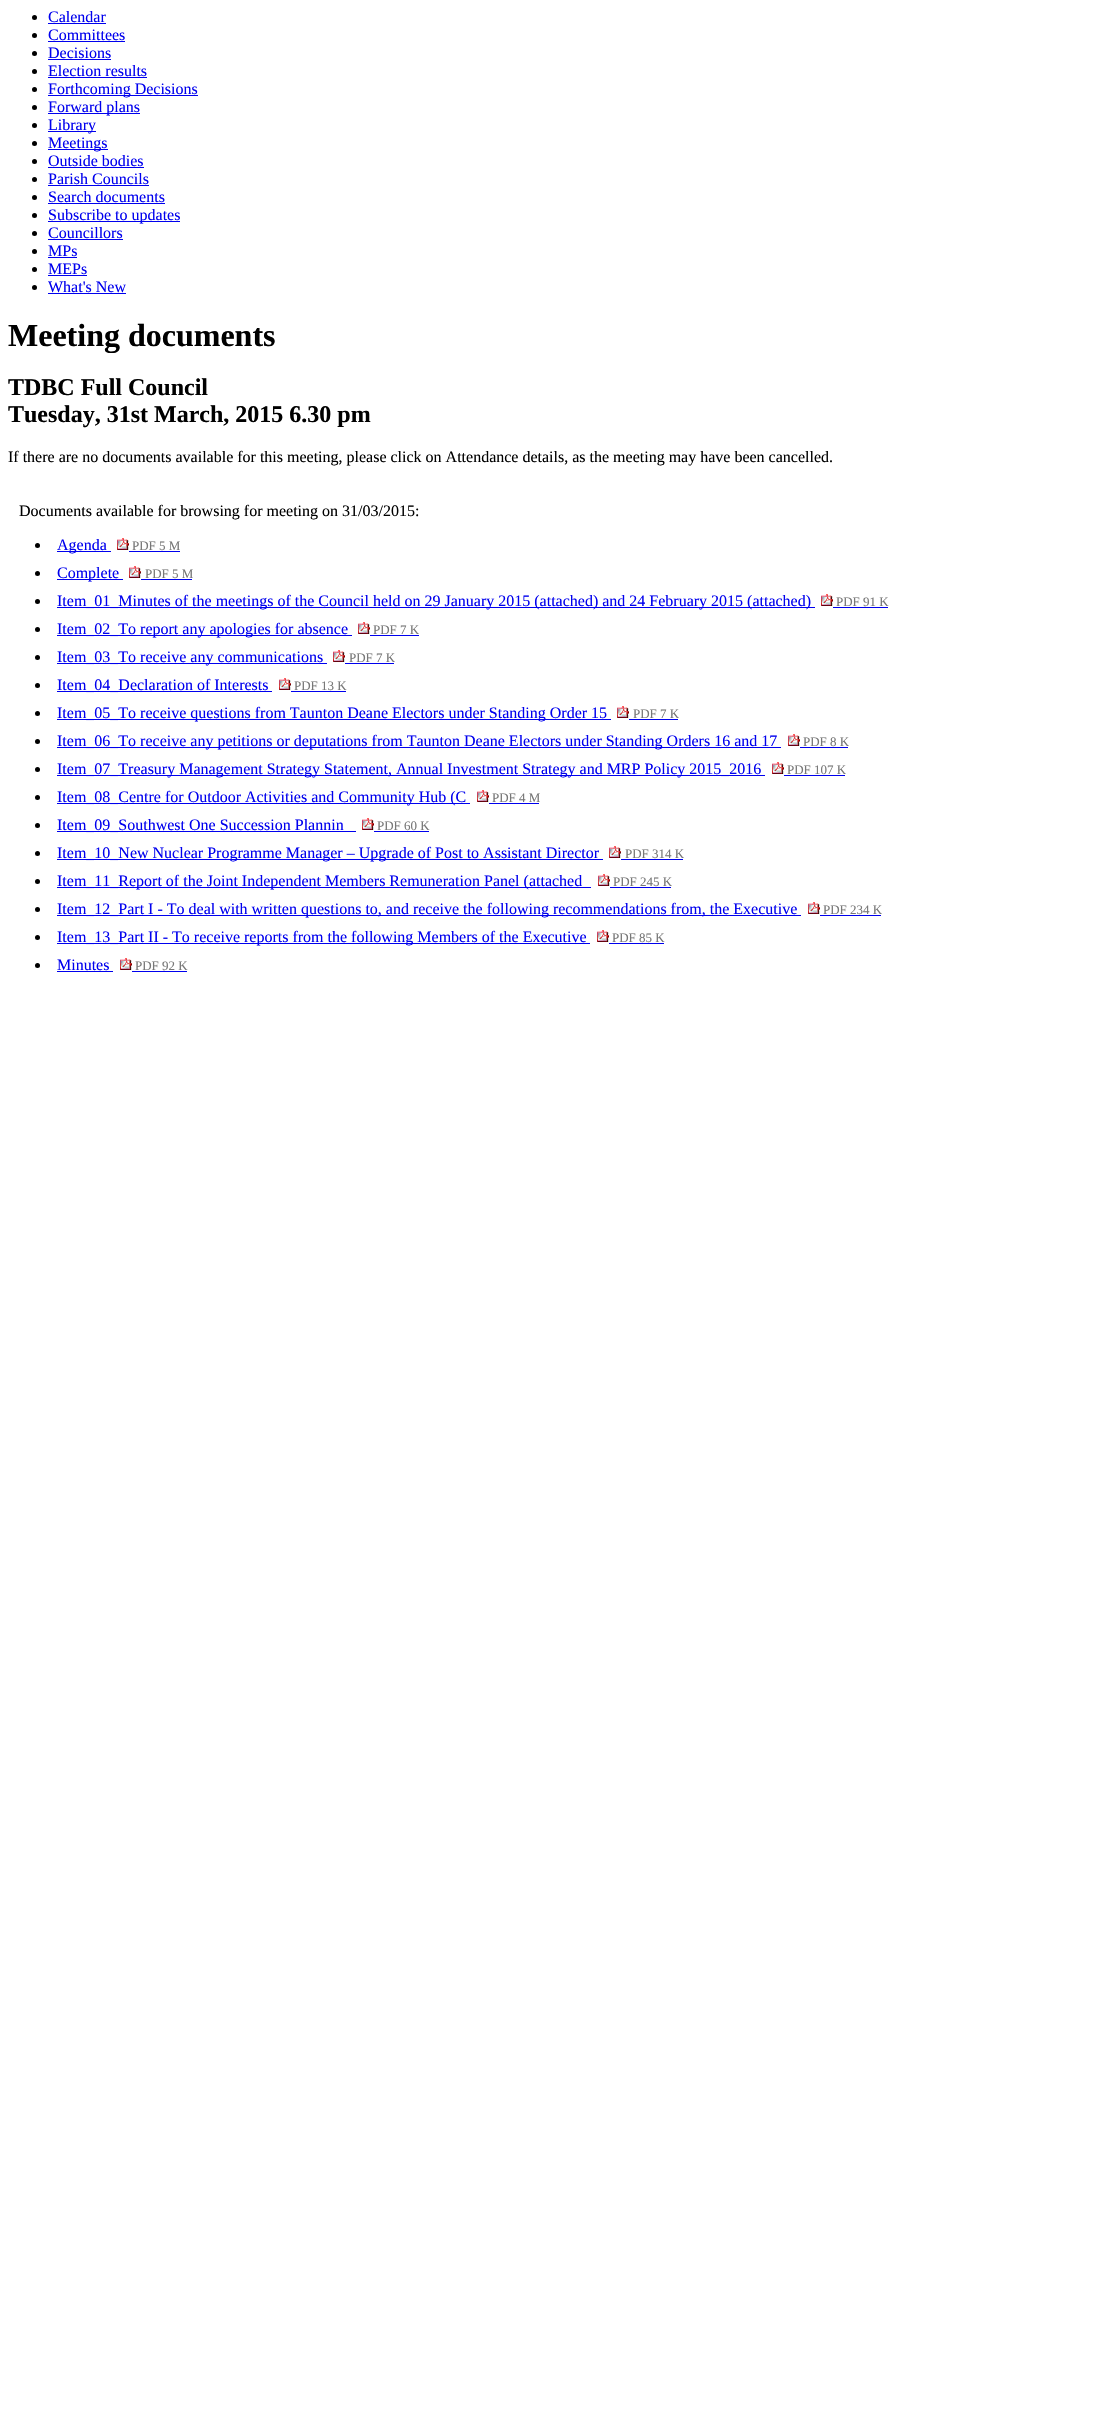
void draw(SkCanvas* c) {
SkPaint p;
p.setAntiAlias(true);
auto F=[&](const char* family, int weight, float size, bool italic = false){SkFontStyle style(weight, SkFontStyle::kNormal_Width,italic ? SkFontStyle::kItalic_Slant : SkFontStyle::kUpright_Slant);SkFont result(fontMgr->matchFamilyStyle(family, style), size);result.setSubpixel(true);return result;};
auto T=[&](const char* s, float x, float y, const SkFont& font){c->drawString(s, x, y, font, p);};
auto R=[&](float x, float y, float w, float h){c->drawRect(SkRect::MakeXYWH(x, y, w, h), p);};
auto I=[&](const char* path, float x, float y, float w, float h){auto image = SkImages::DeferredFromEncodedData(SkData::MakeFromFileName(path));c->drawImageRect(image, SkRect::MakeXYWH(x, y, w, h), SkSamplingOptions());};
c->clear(0xffffffff);
p.setColor(0xff000000);
c->drawCircle(34.5,17.5,2.5,p);
auto f1 = F("Liberation Serif",400,16);
p.setColor(0xff0000ee);
T("Calendar",48,22,f1);
R(48,23,58,1);
p.setColor(0xff000000);
c->drawCircle(34.5,35.5,2.5,p);
p.setColor(0xff0000ee);
T("Committees",48,40,f1);
R(48,41,77,1);
p.setColor(0xff000000);
c->drawCircle(34.5,53.5,2.5,p);
p.setColor(0xff0000ee);
T("Decisions",48,58,f1);
R(48,59,63,1);
p.setColor(0xff000000);
c->drawCircle(34.5,71.5,2.5,p);
p.setColor(0xff0000ee);
T("Election results",48,76,f1);
R(48,77,99,1);
p.setColor(0xff000000);
c->drawCircle(34.5,89.5,2.5,p);
p.setColor(0xff0000ee);
R(48,95,150,1);
T("Forthcoming Decisions",48,94,f1);
p.setColor(0xff000000);
c->drawCircle(34.5,107.5,2.5,p);
p.setColor(0xff0000ee);
R(48,113,92,1);
T("Forward plans",48,112,f1);
p.setColor(0xff000000);
c->drawCircle(34.5,125.5,2.5,p);
p.setColor(0xff0000ee);
R(48,131,48,1);
T("Library",48,130,f1);
p.setColor(0xff000000);
c->drawCircle(34.5,143.5,2.5,p);
p.setColor(0xff0000ee);
R(48,149,60,1);
T("Meetings",48,148,f1);
p.setColor(0xff000000);
c->drawCircle(34.5,161.5,2.5,p);
p.setColor(0xff0000ee);
T("Outside bodies",48,166,f1);
R(48,167,96,1);
p.setColor(0xff000000);
c->drawCircle(34.5,179.5,2.5,p);
p.setColor(0xff0000ee);
T("Parish Councils",48,184,f1);
R(48,185,101,1);
p.setColor(0xff000000);
c->drawCircle(34.5,197.5,2.5,p);
p.setColor(0xff0000ee);
T("Search documents",48,202,f1);
R(48,203,117,1);
p.setColor(0xff000000);
c->drawCircle(34.5,215.5,2.5,p);
p.setColor(0xff0000ee);
R(48,221,132,1);
T("Subscribe to updates",48,220,f1);
p.setColor(0xff000000);
c->drawCircle(34.5,233.5,2.5,p);
p.setColor(0xff0000ee);
T("Councillors",48,238,f1);
R(48,239,75,1);
p.setColor(0xff000000);
c->drawCircle(34.5,251.5,2.5,p);
p.setColor(0xff0000ee);
T("MPs",48,256,f1);
R(48,257,29,1);
p.setColor(0xff000000);
c->drawCircle(34.5,269.5,2.5,p);
p.setColor(0xff0000ee);
T("MEPs",48,274,f1);
R(48,275,39,1);
p.setColor(0xff000000);
c->drawCircle(34.5,287.5,2.5,p);
p.setColor(0xff0000ee);
T("What's New",48,292,f1);
R(48,293,78,1);
auto f2 = F("Liberation Serif",700,32);
p.setColor(0xff000000);
T("Meeting documents",8,346,f2);
auto f3 = F("Liberation Serif",700,24);
T("TDBC Full Council",8,395,f3);
T("Tuesday, 31st March, 2015 6.30 pm",8,422,f3);
T("If there are no documents available for this meeting, please click on Attendance details, as the meeting may have been cancelled.",8,462,f1);
T("Documents available for browsing for meeting on 31/03/2015:",19,516,f1);
c->drawCircle(37.5,545.5,2.5,p);
p.setColor(0xff0000ee);
R(57,551,54,1);
T("Agenda",57,550,f1);
I("1.png",117,538,12,12);
auto f4 = F("Liberation Serif",400,13);
p.setColor(0xff777777);
T("PDF 5 M",132,550,f4);
p.setColor(0xff0000ee);
R(129,551,51,1);
p.setColor(0xff000000);
c->drawCircle(37.5,573.5,2.5,p);
p.setColor(0xff0000ee);
R(57,579,66,1);
T("Complete",57,578,f1);
I("1.png",129,566,12,12);
p.setColor(0xff777777);
T("PDF 5 M",145,578,f4);
p.setColor(0xff0000ee);
R(141,579,51,1);
p.setColor(0xff000000);
c->drawCircle(37.5,601.5,2.5,p);
p.setColor(0xff0000ee);
R(57,607,758,1);
T("Item_01_Minutes of the meetings of the Council held on 29 January 2015 (attached) and 24 February 2015 (attached)",57,606,f1);
I("1.png",821,594,12,12);
p.setColor(0xff777777);
T("PDF 91 K",836,606,f4);
p.setColor(0xff0000ee);
R(833,607,55,1);
p.setColor(0xff000000);
c->drawCircle(37.5,629.5,2.5,p);
p.setColor(0xff0000ee);
R(57,635,295,1);
T("Item_02_To report any apologies for absence",57,634,f1);
I("1.png",358,622,12,12);
p.setColor(0xff777777);
T("PDF 7 K",373,634,f4);
p.setColor(0xff0000ee);
R(370,635,49,1);
p.setColor(0xff000000);
c->drawCircle(37.5,657.5,2.5,p);
p.setColor(0xff0000ee);
R(57,663,270,1);
T("Item_03_To receive any communications",57,662,f1);
I("1.png",333,650,12,12);
p.setColor(0xff777777);
T("PDF 7 K",349,662,f4);
p.setColor(0xff0000ee);
R(345,663,49,1);
p.setColor(0xff000000);
c->drawCircle(37.5,685.5,2.5,p);
p.setColor(0xff0000ee);
R(57,691,215,1);
T("Item_04_Declaration of Interests",57,690,f1);
I("1.png",279,678,12,12);
p.setColor(0xff777777);
T("PDF 13 K",294,690,f4);
p.setColor(0xff0000ee);
R(291,691,55,1);
p.setColor(0xff000000);
c->drawCircle(37.5,713.5,2.5,p);
p.setColor(0xff0000ee);
R(57,719,554,1);
T("Item_05_To receive questions from Taunton Deane Electors under Standing Order 15",57,718,f1);
I("1.png",617,706,12,12);
p.setColor(0xff777777);
T("PDF 7 K",633,718,f4);
p.setColor(0xff0000ee);
R(629,719,49,1);
p.setColor(0xff000000);
c->drawCircle(37.5,741.5,2.5,p);
p.setColor(0xff0000ee);
R(57,747,724,1);
T("Item_06_To receive any petitions or deputations from Taunton Deane Electors under Standing Orders 16 and 17",57,746,f1);
I("1.png",788,734,12,12);
p.setColor(0xff777777);
T("PDF 8 K",803,746,f4);
p.setColor(0xff0000ee);
R(800,747,48,1);
p.setColor(0xff000000);
c->drawCircle(37.5,769.5,2.5,p);
p.setColor(0xff0000ee);
R(57,775,708,1);
T("Item_07_Treasury Management Strategy Statement, Annual Investment Strategy and MRP Policy 2015_2016",57,774,f1);
I("1.png",772,762,12,12);
p.setColor(0xff777777);
T("PDF 107 K",787,774,f4);
p.setColor(0xff0000ee);
R(784,775,61,1);
p.setColor(0xff000000);
c->drawCircle(37.5,797.5,2.5,p);
p.setColor(0xff0000ee);
R(57,803,413,1);
T("Item_08_Centre for Outdoor Activities and Community Hub (C",57,802,f1);
I("1.png",477,790,12,12);
p.setColor(0xff777777);
T("PDF 4 M",492,802,f4);
p.setColor(0xff0000ee);
R(489,803,50,1);
p.setColor(0xff000000);
c->drawCircle(37.5,825.5,2.5,p);
p.setColor(0xff0000ee);
R(57,831,299,1);
T("Item_09_Southwest One Succession Plannin",57,830,f1);
I("1.png",362,818,12,12);
p.setColor(0xff777777);
T("PDF 60 K",377,830,f4);
p.setColor(0xff0000ee);
R(374,831,55,1);
p.setColor(0xff000000);
c->drawCircle(37.5,853.5,2.5,p);
p.setColor(0xff0000ee);
R(57,859,546,1);
T("Item_10_New Nuclear Programme Manager – Upgrade of Post to Assistant Director",57,858,f1);
I("1.png",609,846,12,12);
p.setColor(0xff777777);
T("PDF 314 K",625,858,f4);
p.setColor(0xff0000ee);
R(621,859,62,1);
p.setColor(0xff000000);
c->drawCircle(37.5,881.5,2.5,p);
p.setColor(0xff0000ee);
R(57,887,534,1);
T("Item_11_Report of the Joint Independent Members Remuneration Panel (attached",57,886,f1);
I("1.png",598,874,12,12);
p.setColor(0xff777777);
T("PDF 245 K",613,886,f4);
p.setColor(0xff0000ee);
R(610,887,61,1);
p.setColor(0xff000000);
c->drawCircle(37.5,909.5,2.5,p);
p.setColor(0xff0000ee);
R(57,915,744,1);
T("Item_12_Part I - To deal with written questions to, and receive the following recommendations from, the Executive",57,914,f1);
I("1.png",808,902,12,12);
p.setColor(0xff777777);
T("PDF 234 K",823,914,f4);
p.setColor(0xff0000ee);
R(820,915,61,1);
p.setColor(0xff000000);
c->drawCircle(37.5,937.5,2.5,p);
p.setColor(0xff0000ee);
R(57,943,533,1);
T("Item_13_Part II - To receive reports from the following Members of the Executive",57,942,f1);
I("1.png",597,930,12,12);
p.setColor(0xff777777);
T("PDF 85 K",612,942,f4);
p.setColor(0xff0000ee);
R(609,943,55,1);
p.setColor(0xff000000);
c->drawCircle(37.5,965.5,2.5,p);
p.setColor(0xff0000ee);
T("Minutes",57,970,f1);
R(57,971,56,1);
I("1.png",120,958,12,12);
p.setColor(0xff777777);
T("PDF 92 K",135,970,f4);
p.setColor(0xff0000ee);
R(132,971,55,1);
}
